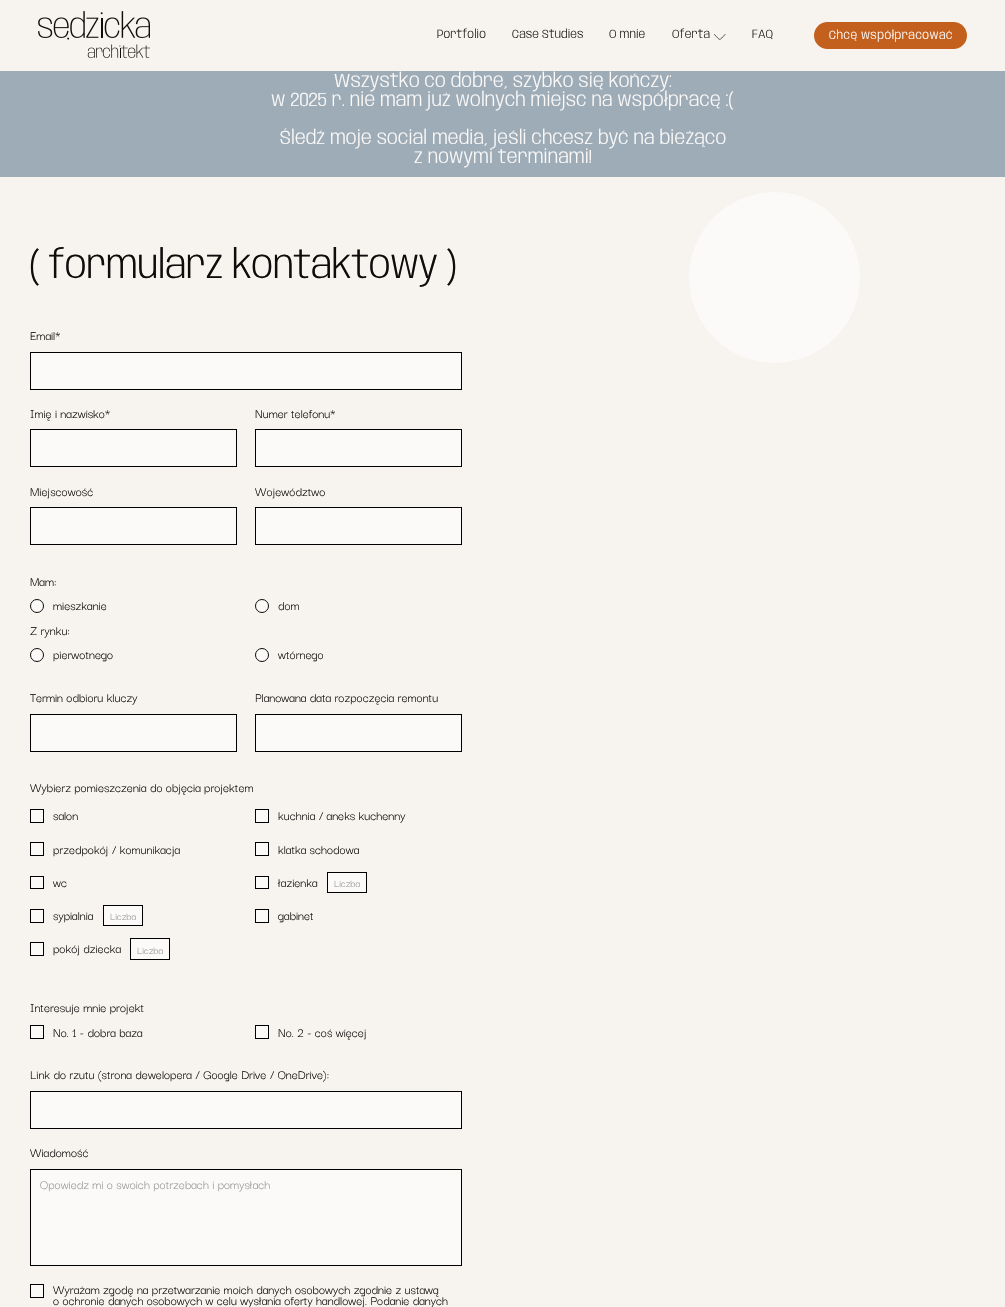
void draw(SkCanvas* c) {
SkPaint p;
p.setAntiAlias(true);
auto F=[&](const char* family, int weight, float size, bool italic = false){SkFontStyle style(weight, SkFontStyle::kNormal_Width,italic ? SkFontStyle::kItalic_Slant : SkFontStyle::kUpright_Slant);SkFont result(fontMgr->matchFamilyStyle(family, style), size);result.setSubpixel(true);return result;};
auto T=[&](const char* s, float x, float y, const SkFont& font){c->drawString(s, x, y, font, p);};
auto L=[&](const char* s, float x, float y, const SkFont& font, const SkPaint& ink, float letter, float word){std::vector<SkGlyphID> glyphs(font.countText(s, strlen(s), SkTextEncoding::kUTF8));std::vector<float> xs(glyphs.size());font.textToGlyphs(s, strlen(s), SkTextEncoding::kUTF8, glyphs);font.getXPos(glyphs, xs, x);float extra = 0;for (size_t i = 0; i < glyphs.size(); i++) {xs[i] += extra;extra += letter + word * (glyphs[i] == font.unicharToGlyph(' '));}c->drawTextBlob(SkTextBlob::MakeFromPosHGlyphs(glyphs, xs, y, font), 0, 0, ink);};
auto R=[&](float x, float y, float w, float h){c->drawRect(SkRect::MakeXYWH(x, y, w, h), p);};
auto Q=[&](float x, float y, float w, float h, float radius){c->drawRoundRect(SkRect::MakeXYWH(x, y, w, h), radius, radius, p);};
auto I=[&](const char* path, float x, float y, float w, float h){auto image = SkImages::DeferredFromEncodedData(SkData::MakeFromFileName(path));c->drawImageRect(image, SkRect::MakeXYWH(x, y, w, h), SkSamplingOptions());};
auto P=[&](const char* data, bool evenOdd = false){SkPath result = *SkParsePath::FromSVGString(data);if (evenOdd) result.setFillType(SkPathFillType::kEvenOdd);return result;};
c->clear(0xfff7f3ee);
I("1.png",38,11,112,47);
auto f1 = F("Anybody",300,12.1);
p.setColor(0xff222222);
T("Portfolio",437,38,f1);
T("Case Studies",512,38,f1);
T("O mnie",609,38,f1);
T("Oferta",672,38,f1);
p.setStroke(true);
p.setStrokeWidth(.7);
p.setStrokeCap(SkPaint::kRound_Cap);
p.setColor(0xff0e0d0c);
c->drawPath(P("M714.5 34.5c6 6.5 4.5 6.5 10.5 0"),p);
p.setStroke(false);
p.setColor(0xff222222);
T("FAQ",752,38,f1);
p.setColor(0xffc3601d);
Q(814,22,153,27,13.5);
p.setColor(0xffffffff);
L("Chcę współpracować",829,39,f1,p,.4,0);
p.setColor(0xff9eacb8);
R(0,71,1005,106);
auto f2 = F("Anybody",300,19.4);
p.setColor(0xfffcfaf8);
T("Wszystko co dobre, szybko się kończy:",334,87,f2);
T("w 2025 r. nie mam już wolnych miejsc na współpracę :(",271,106,f2);
T("Śledź moje social media, jeśli chcesz być na bieżąco",280,144,f2);
T("z nowymi terminami!",414,163,f2);
auto f3 = F("Anybody",300,39.4);
p.setColor(0xff0e0d0c);
L("( formularz kontaktowy )",30,278,f3,p,-.75,0);
auto f4 = F("Darker Grotesque",400,13.6);
T("Email*",30,340,f4);
p.setColor(0xfffcfaf8);
c->drawRect(SkRect::MakeXYWH(30.5,352.5,431,37),p);
p.setStroke(true);
p.setStrokeWidth(1);
p.setStrokeCap(SkPaint::kButt_Cap);
p.setColor(0xff000000);
c->drawRect(SkRect::MakeXYWH(30.5,352.5,431,37),p);
p.setStroke(false);
p.setColor(0xff0e0d0c);
T("Imię i nazwisko*",30,418,f4);
p.setColor(0xfffcfaf8);
c->drawRect(SkRect::MakeXYWH(30.5,429.5,206,37),p);
p.setStroke(true);
p.setColor(0xff000000);
c->drawRect(SkRect::MakeXYWH(30.5,429.5,206,37),p);
p.setStroke(false);
p.setColor(0xff0e0d0c);
T("Numer telefonu*",255,418,f4);
p.setColor(0xfffcfaf8);
c->drawRect(SkRect::MakeXYWH(255.5,429.5,206,37),p);
p.setStroke(true);
p.setColor(0xff000000);
c->drawRect(SkRect::MakeXYWH(255.5,429.5,206,37),p);
p.setStroke(false);
p.setColor(0xff0e0d0c);
T("Miejscowość",30,496,f4);
p.setColor(0xfffcfaf8);
c->drawRect(SkRect::MakeXYWH(30.5,507.5,206,37),p);
p.setStroke(true);
p.setColor(0xff000000);
c->drawRect(SkRect::MakeXYWH(30.5,507.5,206,37),p);
p.setStroke(false);
p.setColor(0xff0e0d0c);
T("Województwo",255,496,f4);
p.setColor(0xfffcfaf8);
c->drawRect(SkRect::MakeXYWH(255.5,507.5,206,37),p);
p.setStroke(true);
p.setColor(0xff000000);
c->drawRect(SkRect::MakeXYWH(255.5,507.5,206,37),p);
p.setStroke(false);
p.setColor(0xff0e0d0c);
T("Mam:",30,586,f4);
p.setColor(0xfffcfaf8);
c->drawCircle(37,606,6.5,p);
p.setStroke(true);
p.setColor(0xff0e0d0c);
c->drawCircle(37,606,6.5,p);
p.setStroke(false);
T("mieszkanie",53,610,f4);
p.setColor(0xfffcfaf8);
c->drawCircle(262,606,6.5,p);
p.setStroke(true);
p.setColor(0xff0e0d0c);
c->drawCircle(262,606,6.5,p);
p.setStroke(false);
T("dom",278,610,f4);
T("Z rynku:",30,635,f4);
p.setColor(0xfffcfaf8);
c->drawCircle(37,655,6.5,p);
p.setStroke(true);
p.setColor(0xff0e0d0c);
c->drawCircle(37,655,6.5,p);
p.setStroke(false);
T("pierwotnego",53,659,f4);
p.setColor(0xfffcfaf8);
c->drawCircle(262,655,6.5,p);
p.setStroke(true);
p.setColor(0xff0e0d0c);
c->drawCircle(262,655,6.5,p);
p.setStroke(false);
T("wtórnego",278,659,f4);
T("Termin odbioru kluczy",30,702,f4);
p.setColor(0xfffcfaf8);
c->drawRect(SkRect::MakeXYWH(30.5,714.5,206,37),p);
p.setStroke(true);
p.setColor(0xff000000);
c->drawRect(SkRect::MakeXYWH(30.5,714.5,206,37),p);
p.setStroke(false);
p.setColor(0xff0e0d0c);
T("Planowana data rozpoczęcia remontu",255,702,f4);
p.setColor(0xfffcfaf8);
c->drawRect(SkRect::MakeXYWH(255.5,714.5,206,37),p);
p.setStroke(true);
p.setColor(0xff000000);
c->drawRect(SkRect::MakeXYWH(255.5,714.5,206,37),p);
p.setStroke(false);
p.setColor(0xff0e0d0c);
T("Wybierz pomieszczenia do objęcia projektem",30,792,f4);
p.setColor(0xfffcfaf8);
c->drawRect(SkRect::MakeXYWH(30.5,809.5,13,13),p);
p.setStroke(true);
p.setColor(0xff000000);
c->drawRect(SkRect::MakeXYWH(30.5,809.5,13,13),p);
p.setStroke(false);
p.setColor(0xff0e0d0c);
T("salon",53,820,f4);
p.setColor(0xfffcfaf8);
c->drawRect(SkRect::MakeXYWH(255.5,809.5,13,13),p);
p.setStroke(true);
p.setColor(0xff000000);
c->drawRect(SkRect::MakeXYWH(255.5,809.5,13,13),p);
p.setStroke(false);
p.setColor(0xff0e0d0c);
T("kuchnia / aneks kuchenny",278,820,f4);
p.setColor(0xfffcfaf8);
c->drawRect(SkRect::MakeXYWH(30.5,842.5,13,13),p);
p.setStroke(true);
p.setColor(0xff000000);
c->drawRect(SkRect::MakeXYWH(30.5,842.5,13,13),p);
p.setStroke(false);
p.setColor(0xff0e0d0c);
T("przedpokój / komunikacja",53,854,f4);
p.setColor(0xfffcfaf8);
c->drawRect(SkRect::MakeXYWH(255.5,842.5,13,13),p);
p.setStroke(true);
p.setColor(0xff000000);
c->drawRect(SkRect::MakeXYWH(255.5,842.5,13,13),p);
p.setStroke(false);
p.setColor(0xff0e0d0c);
T("klatka schodowa",278,854,f4);
p.setColor(0xfffcfaf8);
c->drawRect(SkRect::MakeXYWH(30.5,876.5,13,12),p);
p.setStroke(true);
p.setColor(0xff000000);
c->drawRect(SkRect::MakeXYWH(30.5,876.5,13,12),p);
p.setStroke(false);
p.setColor(0xff0e0d0c);
T("wc",53,887,f4);
p.setColor(0xfffcfaf8);
c->drawRect(SkRect::MakeXYWH(255.5,876.5,13,12),p);
p.setStroke(true);
p.setColor(0xff000000);
c->drawRect(SkRect::MakeXYWH(255.5,876.5,13,12),p);
p.setStroke(false);
p.setColor(0xff0e0d0c);
T("łazienka",278,887,f4);
p.setColor(0xfffcfaf8);
c->drawRect(SkRect::MakeXYWH(327.5,872.5,39,20),p);
p.setStroke(true);
p.setColor(0xff000000);
c->drawRect(SkRect::MakeXYWH(327.5,872.5,39,20),p);
c->save();
c->clipRect(SkRect::MakeXYWH(334,875,26,15));
auto f5 = F("Darker Grotesque",400,11);
p.setStroke(false);
p.setColor(0xff999999);
T("Liczba",334,887,f5);
c->restore();
p.setColor(0xfffcfaf8);
c->drawRect(SkRect::MakeXYWH(30.5,909.5,13,13),p);
p.setStroke(true);
p.setColor(0xff000000);
c->drawRect(SkRect::MakeXYWH(30.5,909.5,13,13),p);
p.setStroke(false);
p.setColor(0xff0e0d0c);
T("sypialnia",53,920,f4);
p.setColor(0xfffcfaf8);
c->drawRect(SkRect::MakeXYWH(103.5,905.5,39,20),p);
p.setStroke(true);
p.setColor(0xff000000);
c->drawRect(SkRect::MakeXYWH(103.5,905.5,39,20),p);
p.setStroke(false);
p.setColor(0xff999999);
T("Liczba",110,920,f5);
p.setColor(0xfffcfaf8);
c->drawRect(SkRect::MakeXYWH(255.5,909.5,13,13),p);
p.setStroke(true);
p.setColor(0xff000000);
c->drawRect(SkRect::MakeXYWH(255.5,909.5,13,13),p);
p.setStroke(false);
p.setColor(0xff0e0d0c);
T("gabinet",278,920,f4);
p.setColor(0xfffcfaf8);
c->drawRect(SkRect::MakeXYWH(30.5,942.5,13,13),p);
p.setStroke(true);
p.setColor(0xff000000);
c->drawRect(SkRect::MakeXYWH(30.5,942.5,13,13),p);
p.setStroke(false);
p.setColor(0xff0e0d0c);
T("pokój dziecka",53,953,f4);
p.setColor(0xfffcfaf8);
c->drawRect(SkRect::MakeXYWH(130.5,938.5,39,21),p);
p.setStroke(true);
p.setColor(0xff000000);
c->drawRect(SkRect::MakeXYWH(130.5,938.5,39,21),p);
c->save();
c->clipRect(SkRect::MakeXYWH(137,942,26,15));
p.setStroke(false);
p.setColor(0xff999999);
T("Liczba",137,954,f5);
c->restore();
p.setColor(0xff0e0d0c);
T("Interesuje mnie projekt",30,1012,f4);
p.setColor(0xfffcfaf8);
c->drawRect(SkRect::MakeXYWH(30.5,1025.5,13,13),p);
p.setStroke(true);
p.setColor(0xff000000);
c->drawRect(SkRect::MakeXYWH(30.5,1025.5,13,13),p);
p.setStroke(false);
p.setColor(0xff0e0d0c);
T("No. 1 - dobra baza",53,1037,f4);
p.setColor(0xfffcfaf8);
c->drawRect(SkRect::MakeXYWH(255.5,1025.5,13,13),p);
p.setStroke(true);
p.setColor(0xff000000);
c->drawRect(SkRect::MakeXYWH(255.5,1025.5,13,13),p);
p.setStroke(false);
p.setColor(0xff0e0d0c);
T("No. 2 - coś więcej",278,1037,f4);
T("Link do rzutu (strona dewelopera / Google Drive / OneDrive):",30,1079,f4);
p.setColor(0xfffcfaf8);
c->drawRect(SkRect::MakeXYWH(30.5,1091.5,431,37),p);
p.setStroke(true);
p.setColor(0xff000000);
c->drawRect(SkRect::MakeXYWH(30.5,1091.5,431,37),p);
p.setStroke(false);
p.setColor(0xff0e0d0c);
T("Wiadomość",30,1157,f4);
p.setColor(0xfffcfaf8);
c->drawRect(SkRect::MakeXYWH(30.5,1169.5,431,96),p);
p.setStroke(true);
p.setColor(0xff000000);
c->drawRect(SkRect::MakeXYWH(30.5,1169.5,431,96),p);
p.setStroke(false);
p.setColor(0xff999999);
T("Opowiedz mi o swoich potrzebach i pomysłach",40,1189,f4);
p.setColor(0xfffcfaf8);
c->drawRect(SkRect::MakeXYWH(30.5,1284.5,13,13),p);
p.setStroke(true);
p.setColor(0xff000000);
c->drawRect(SkRect::MakeXYWH(30.5,1284.5,13,13),p);
p.setStroke(false);
p.setColor(0xff0e0d0c);
T("Wyrażam zgodę na przetwarzanie moich danych osobowych zgodnie z ustawą",53,1294,f4);
T("o ochronie danych osobowych w celu wysłania oferty handlowej. Podanie danych",53,1305,f4);
p.setColor(0xfffcfaf8);
c->drawCircle(774.5,277.5,85.5,p);
}
